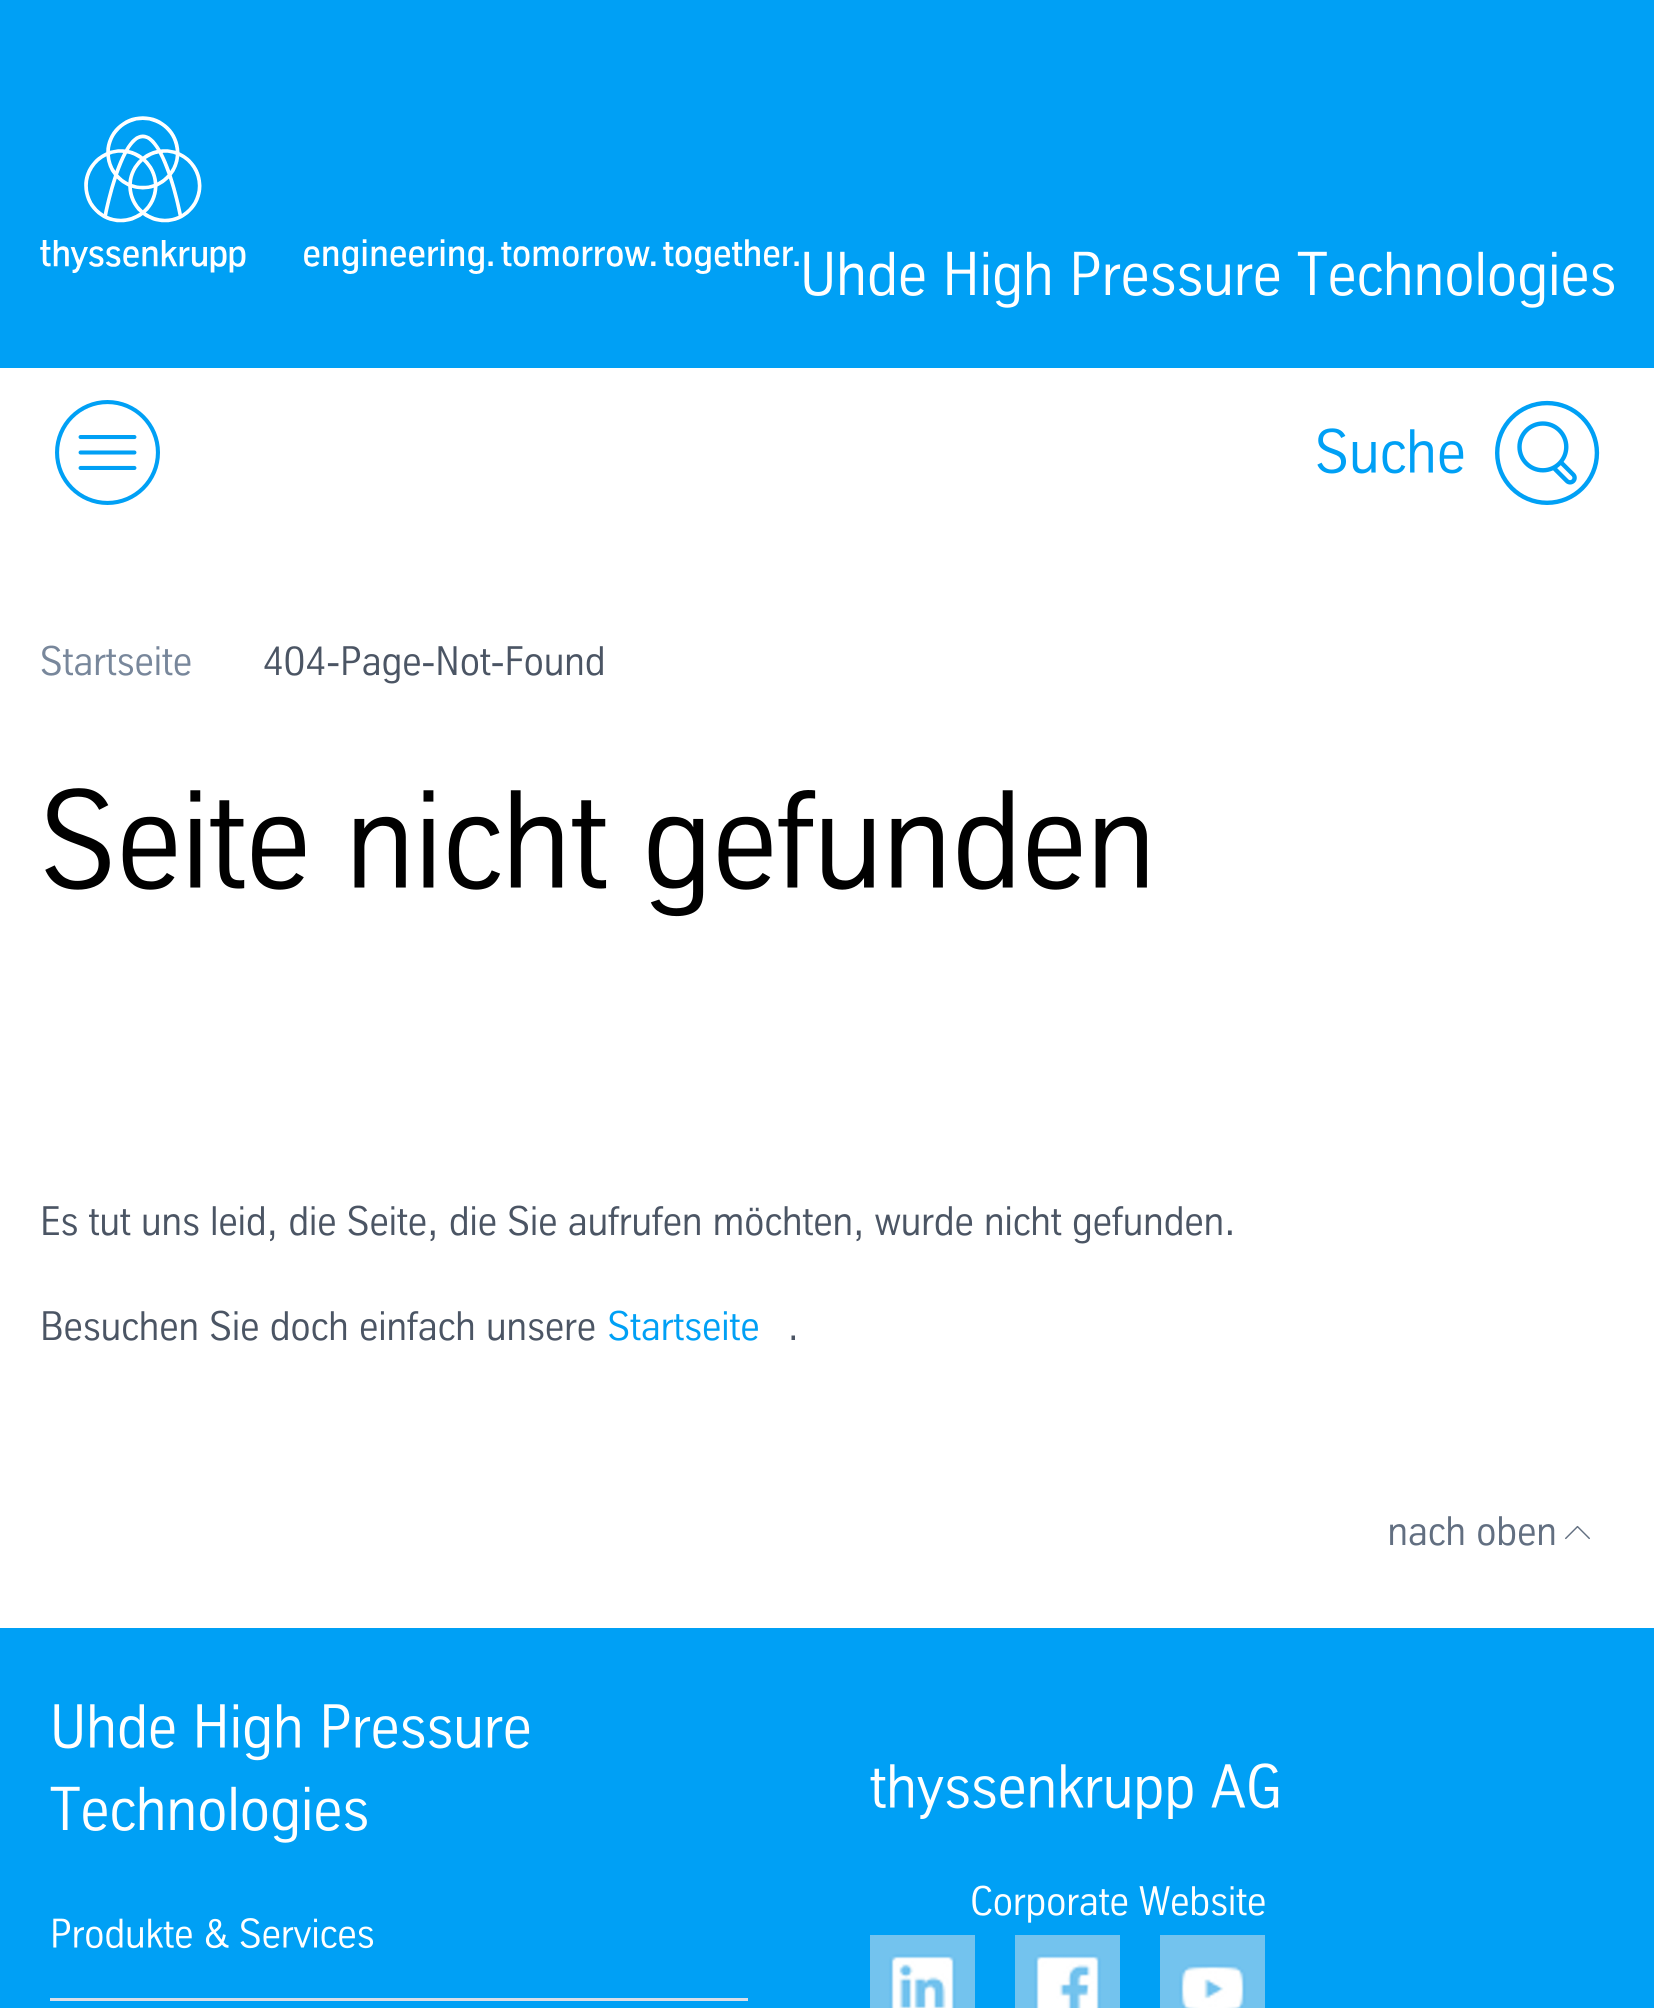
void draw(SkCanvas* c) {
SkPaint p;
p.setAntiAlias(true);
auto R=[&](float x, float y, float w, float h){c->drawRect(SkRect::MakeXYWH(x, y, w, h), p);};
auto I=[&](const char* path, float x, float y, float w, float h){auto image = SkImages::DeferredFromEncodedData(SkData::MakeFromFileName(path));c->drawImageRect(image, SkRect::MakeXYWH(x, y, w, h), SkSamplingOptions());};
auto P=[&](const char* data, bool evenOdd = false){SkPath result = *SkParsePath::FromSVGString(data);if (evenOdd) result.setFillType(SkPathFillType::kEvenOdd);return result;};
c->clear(0xffffffff);
p.setColor(0xff00a0f5);
R(0,0,1654,368);
I("1.png",40,116,759,158);
I("2.png",804,251,810,57);
I("3.png",55,400,105,105);
I("4.png",1317,428,147,46);
I("5.png",1495,400,105,105);
I("6.png",41,645,150,31);
I("7.png",264,646,339,38);
I("8.png",45,788,1102,129);
I("9.png",43,1205,1189,39);
I("10.png",43,1310,552,31);
I("11.png",609,1310,149,31);
p.setColor(0xff4b5564);
c->drawPath(P("M791.5 1340v-4.5h3.5v4.5z"),p);
I("12.png",1390,1516,165,30);
I("13.png",1565,1525,25,15);
p.setColor(0xff00a0f5);
R(0,1628,1654,380);
I("14.png",54,1704,476,57);
I("15.png",50,1786,317,57);
p.setColor(0xffd9dee8);
R(50,1998,698,3);
I("16.png",53,1918,320,31);
I("17.png",870,1763,409,56);
I("18.png",972,1885,293,38);
I("19.png",870,1935,105,73);
I("20.png",1015,1935,105,73);
I("21.png",1160,1935,105,73);
}
